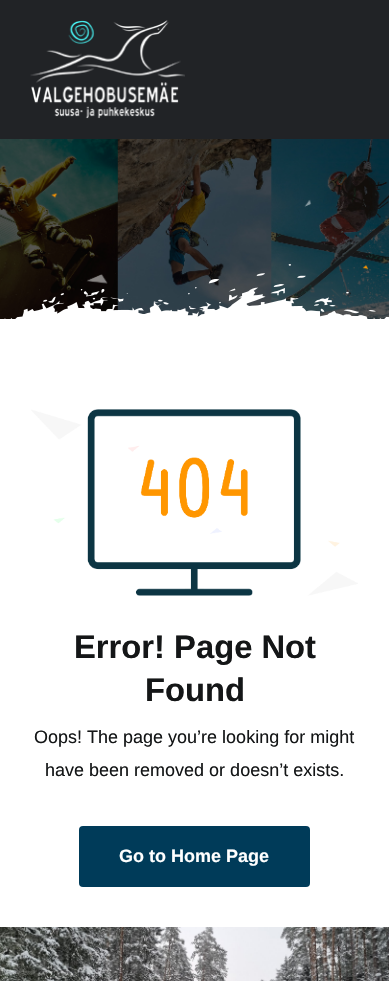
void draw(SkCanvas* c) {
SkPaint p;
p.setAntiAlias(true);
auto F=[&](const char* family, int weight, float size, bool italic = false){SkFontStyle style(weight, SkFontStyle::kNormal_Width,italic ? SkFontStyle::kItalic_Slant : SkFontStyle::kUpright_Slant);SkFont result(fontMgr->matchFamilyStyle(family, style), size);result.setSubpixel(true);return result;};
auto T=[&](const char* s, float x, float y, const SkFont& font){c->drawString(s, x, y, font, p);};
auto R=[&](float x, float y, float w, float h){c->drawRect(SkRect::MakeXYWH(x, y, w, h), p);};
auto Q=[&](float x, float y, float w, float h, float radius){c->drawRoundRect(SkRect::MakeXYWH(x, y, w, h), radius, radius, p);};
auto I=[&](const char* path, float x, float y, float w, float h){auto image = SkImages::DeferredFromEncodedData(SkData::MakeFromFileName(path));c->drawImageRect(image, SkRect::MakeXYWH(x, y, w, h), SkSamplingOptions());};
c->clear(0xffffffff);
p.setColor(0xff212326);
R(0,0,389,139);
I("1.png",30,20,155,99);
I("2.png",0,139,389,180);
I("3.png",4,264,385,55);
I("4.png",31,409,327,187);
auto f1 = F("Liberation Sans",700,32.75);
p.setColor(0xff141617);
T("Error! Page Not",74,658,f1);
T("Found",145,701,f1);
auto f2 = F("Liberation Sans",400,18);
T("Oops! The page you’re looking for might",34,743,f2);
T("have been removed or doesn’t exists.",45,776,f2);
p.setColor(0xff003b59);
Q(79,826,231,61,4);
auto f3 = F("Liberation Sans",700,18);
p.setColor(0xffffffff);
T("Go to Home Page",119,862,f3);
I("5.png",0,927,389,54);
}
